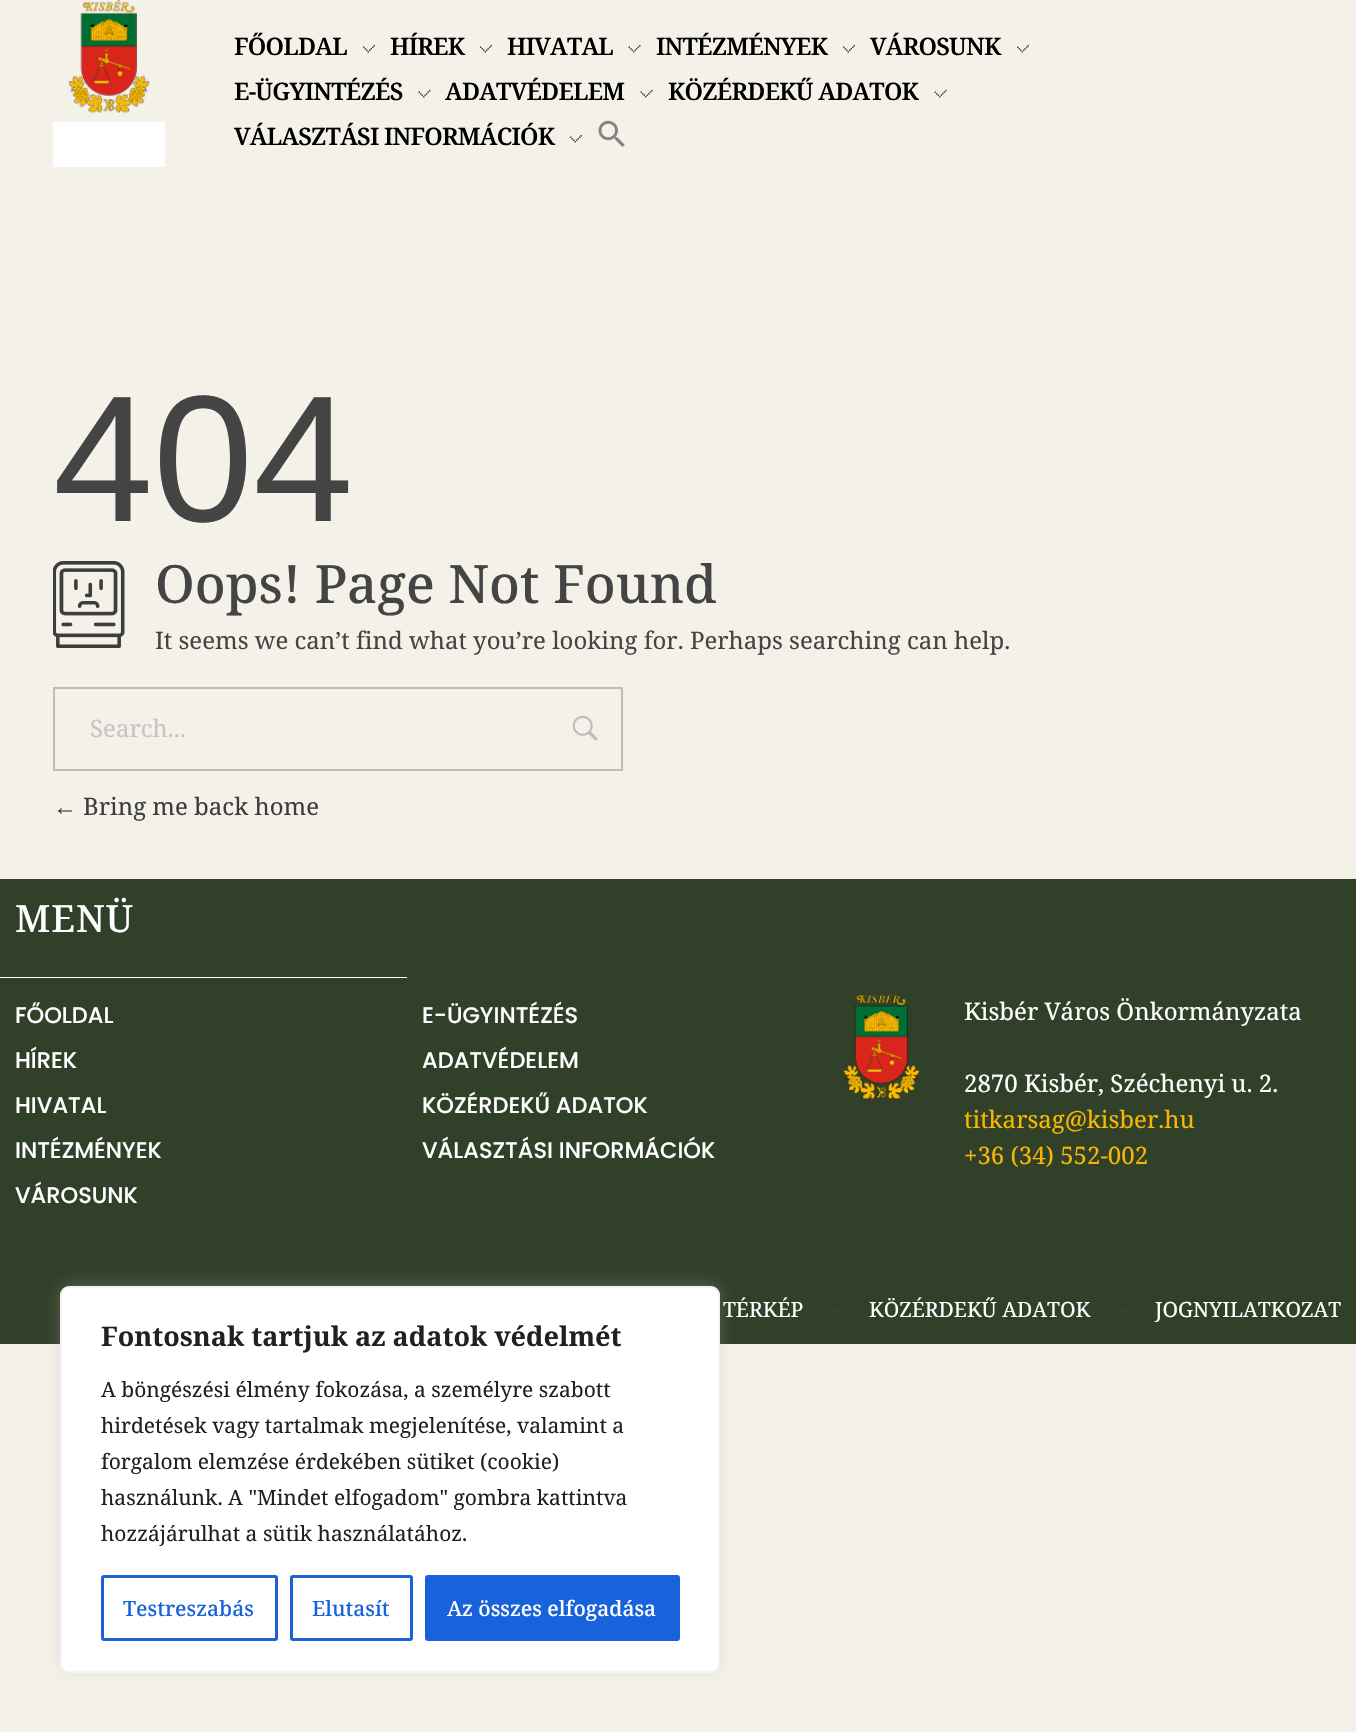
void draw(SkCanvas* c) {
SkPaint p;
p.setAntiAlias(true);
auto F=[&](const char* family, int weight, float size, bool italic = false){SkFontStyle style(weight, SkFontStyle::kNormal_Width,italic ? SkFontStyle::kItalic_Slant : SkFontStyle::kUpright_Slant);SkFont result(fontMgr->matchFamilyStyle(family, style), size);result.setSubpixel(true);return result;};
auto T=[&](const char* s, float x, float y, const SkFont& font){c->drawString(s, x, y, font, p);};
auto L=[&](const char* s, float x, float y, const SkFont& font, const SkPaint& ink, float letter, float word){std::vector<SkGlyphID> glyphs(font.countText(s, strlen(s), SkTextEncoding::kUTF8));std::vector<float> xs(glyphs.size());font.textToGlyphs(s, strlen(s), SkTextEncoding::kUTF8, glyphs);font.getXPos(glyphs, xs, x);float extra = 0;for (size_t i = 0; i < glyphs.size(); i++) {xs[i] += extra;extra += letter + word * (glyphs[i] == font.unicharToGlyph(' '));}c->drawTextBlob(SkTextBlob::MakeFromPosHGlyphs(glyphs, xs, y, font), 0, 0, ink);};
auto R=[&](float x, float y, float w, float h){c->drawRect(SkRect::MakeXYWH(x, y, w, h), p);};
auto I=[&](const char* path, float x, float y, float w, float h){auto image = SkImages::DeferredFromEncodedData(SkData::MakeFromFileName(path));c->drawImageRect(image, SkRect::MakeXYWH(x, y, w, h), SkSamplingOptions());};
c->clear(0xfff4f1e8);
I("1.png",68,0,82,113);
p.setColor(0xffffffff);
R(53,122,112,45);
auto f1 = F("Noto Serif",600,24);
p.setColor(0xff000000);
L("FŐOLDAL",234,55,f1,p,-.75,0);
I("2.png",363,45,12,8);
L("HÍREK",390,55,f1,p,-.75,0);
I("2.png",480,45,12,8);
L("HIVATAL",507,55,f1,p,-.75,0);
I("3.png",628,45,13,8);
L("INTÉZMÉNYEK",656,55,f1,p,-.75,0);
I("2.png",843,45,12,8);
L("VÁROSUNK",870,55,f1,p,-.75,0);
I("2.png",1017,45,12,8);
L("E-ÜGYINTÉZÉS",234,100,f1,p,-.75,0);
I("3.png",418,90,13,8);
L("ADATVÉDELEM",445,100,f1,p,-.75,0);
I("3.png",640,90,13,8);
L("KÖZÉRDEKŰ ADATOK",668,100,f1,p,-.75,0);
I("3.png",934,90,13,8);
L("VÁLASZTÁSI INFORMÁCIÓK",234,145,f1,p,-.75,0);
I("2.png",570,135,12,8);
I("4.png",598,120,27,27);
auto f2 = F("Liberation Sans",400,180);
p.setColor(0xff444444);
T("404",53,521,f2);
I("5.png",53,561,72,87);
auto f3 = F("Noto Serif",500,52.75);
T("Oops! Page Not Found",155,603,f3);
auto f4 = F("Noto Serif",400,24);
T("It seems we can’t find what you’re looking for. Perhaps searching can help.",155,649,f4);
p.setStroke(true);
p.setStrokeWidth(2);
p.setColor(0xffbbbbbb);
c->drawRect(SkRect::MakeXYWH(54,688,568,82),p);
p.setStroke(false);
p.setColor(0xffc5c5c5);
T("Search...",90,737,f4);
I("6.png",572,715,26,26);
auto f5 = F("Liberation Sans",400,24);
p.setColor(0xff3d3d3d);
T("←",53,815,f5);
T("Bring me back home",83,815,f4);
p.setColor(0xff314028);
R(0,879,1356,465);
p.setColor(0xffffffff);
R(0,977,407,1);
auto f6 = F("Noto Serif",500,37.5);
L("MENÜ",15,932,f6,p,1,0);
auto f7 = F("Poppins",500,22.5);
T("FŐOLDAL",15,1023,f7);
T("HÍREK",15,1068,f7);
T("HIVATAL",15,1113,f7);
T("INTÉZMÉNYEK",15,1158,f7);
T("VÁROSUNK",15,1203,f7);
T("E-ÜGYINTÉZÉS",422,1023,f7);
T("ADATVÉDELEM",422,1068,f7);
T("KÖZÉRDEKŰ ADATOK",422,1113,f7);
T("VÁLASZTÁSI INFORMÁCIÓK",422,1158,f7);
I("7.png",843,993,77,107);
T("Kisbér Város Önkormányzata",964,1020,f4);
T("2870 Kisbér, Széchenyi u. 2.",964,1092,f4);
p.setColor(0xfff6b801);
T("titkarsag@kisber.hu",964,1128,f4);
T("+36 (34) 552-002",964,1164,f4);
auto f8 = F("Noto Serif",400,21);
p.setColor(0xffffffff);
T("TÉRKÉP",723,1317,f8);
p.setColor(0xff3d3d3d);
c->drawCircle(836.5,1310.5,2.5,p);
p.setColor(0xffffffff);
T("KÖZÉRDEKŰ ADATOK",869,1317,f8);
p.setColor(0xff3d3d3d);
c->drawCircle(1123.5,1310.5,2.5,p);
p.setColor(0xffffffff);
T("JOGNYILATKOZAT",1155,1317,f8);
p.setColor(0x4dacabab);
p.setMaskFilter(SkMaskFilter::MakeBlur(kNormal_SkBlurStyle, 7.5));
c->drawRoundRect(SkRect::MakeXYWH(60,1284,660,387),9,9,p);
p.setMaskFilter(nullptr);
p.setColor(0xffffffff);
c->drawRoundRect(SkRect::MakeXYWH(61,1287,658,385),8,8,p);
p.setStroke(true);
p.setColor(0xfff4f4f4);
c->drawRoundRect(SkRect::MakeXYWH(61,1287,658,385),8,8,p);
auto f9 = F("Noto Serif",700,27);
p.setStroke(false);
p.setColor(0xff212121);
T("Fontosnak tartjuk az adatok védelmét",101,1346,f9);
T("A böngészési élmény fokozása, a személyre szabott",101,1397,f8);
T("hirdetések vagy tartalmak megjelenítése, valamint a",101,1433,f8);
T("forgalom elemzése érdekében sütiket (cookie)",101,1469,f8);
T("használunk. A \"Mindet elfogadom\" gombra kattintva",101,1505,f8);
T("hozzájárulhat a sütik használatához.",101,1541,f8);
p.setStroke(true);
p.setStrokeWidth(3);
p.setColor(0xff1863dc);
c->drawRoundRect(SkRect::MakeXYWH(102.5,1576.5,174,63),1.5,1.5,p);
auto f10 = F("Noto Serif",500,21);
p.setStroke(false);
T("Testreszabás",123,1616,f10);
p.setStroke(true);
c->drawRoundRect(SkRect::MakeXYWH(291.5,1576.5,120,63),1.5,1.5,p);
p.setStroke(false);
T("Elutasít",312,1616,f10);
c->drawRoundRect(SkRect::MakeXYWH(426.5,1576.5,252,63),1.5,1.5,p);
p.setStroke(true);
c->drawRoundRect(SkRect::MakeXYWH(426.5,1576.5,252,63),1.5,1.5,p);
p.setStroke(false);
p.setColor(0xffffffff);
T("Az összes elfogadása",447,1616,f10);
}
